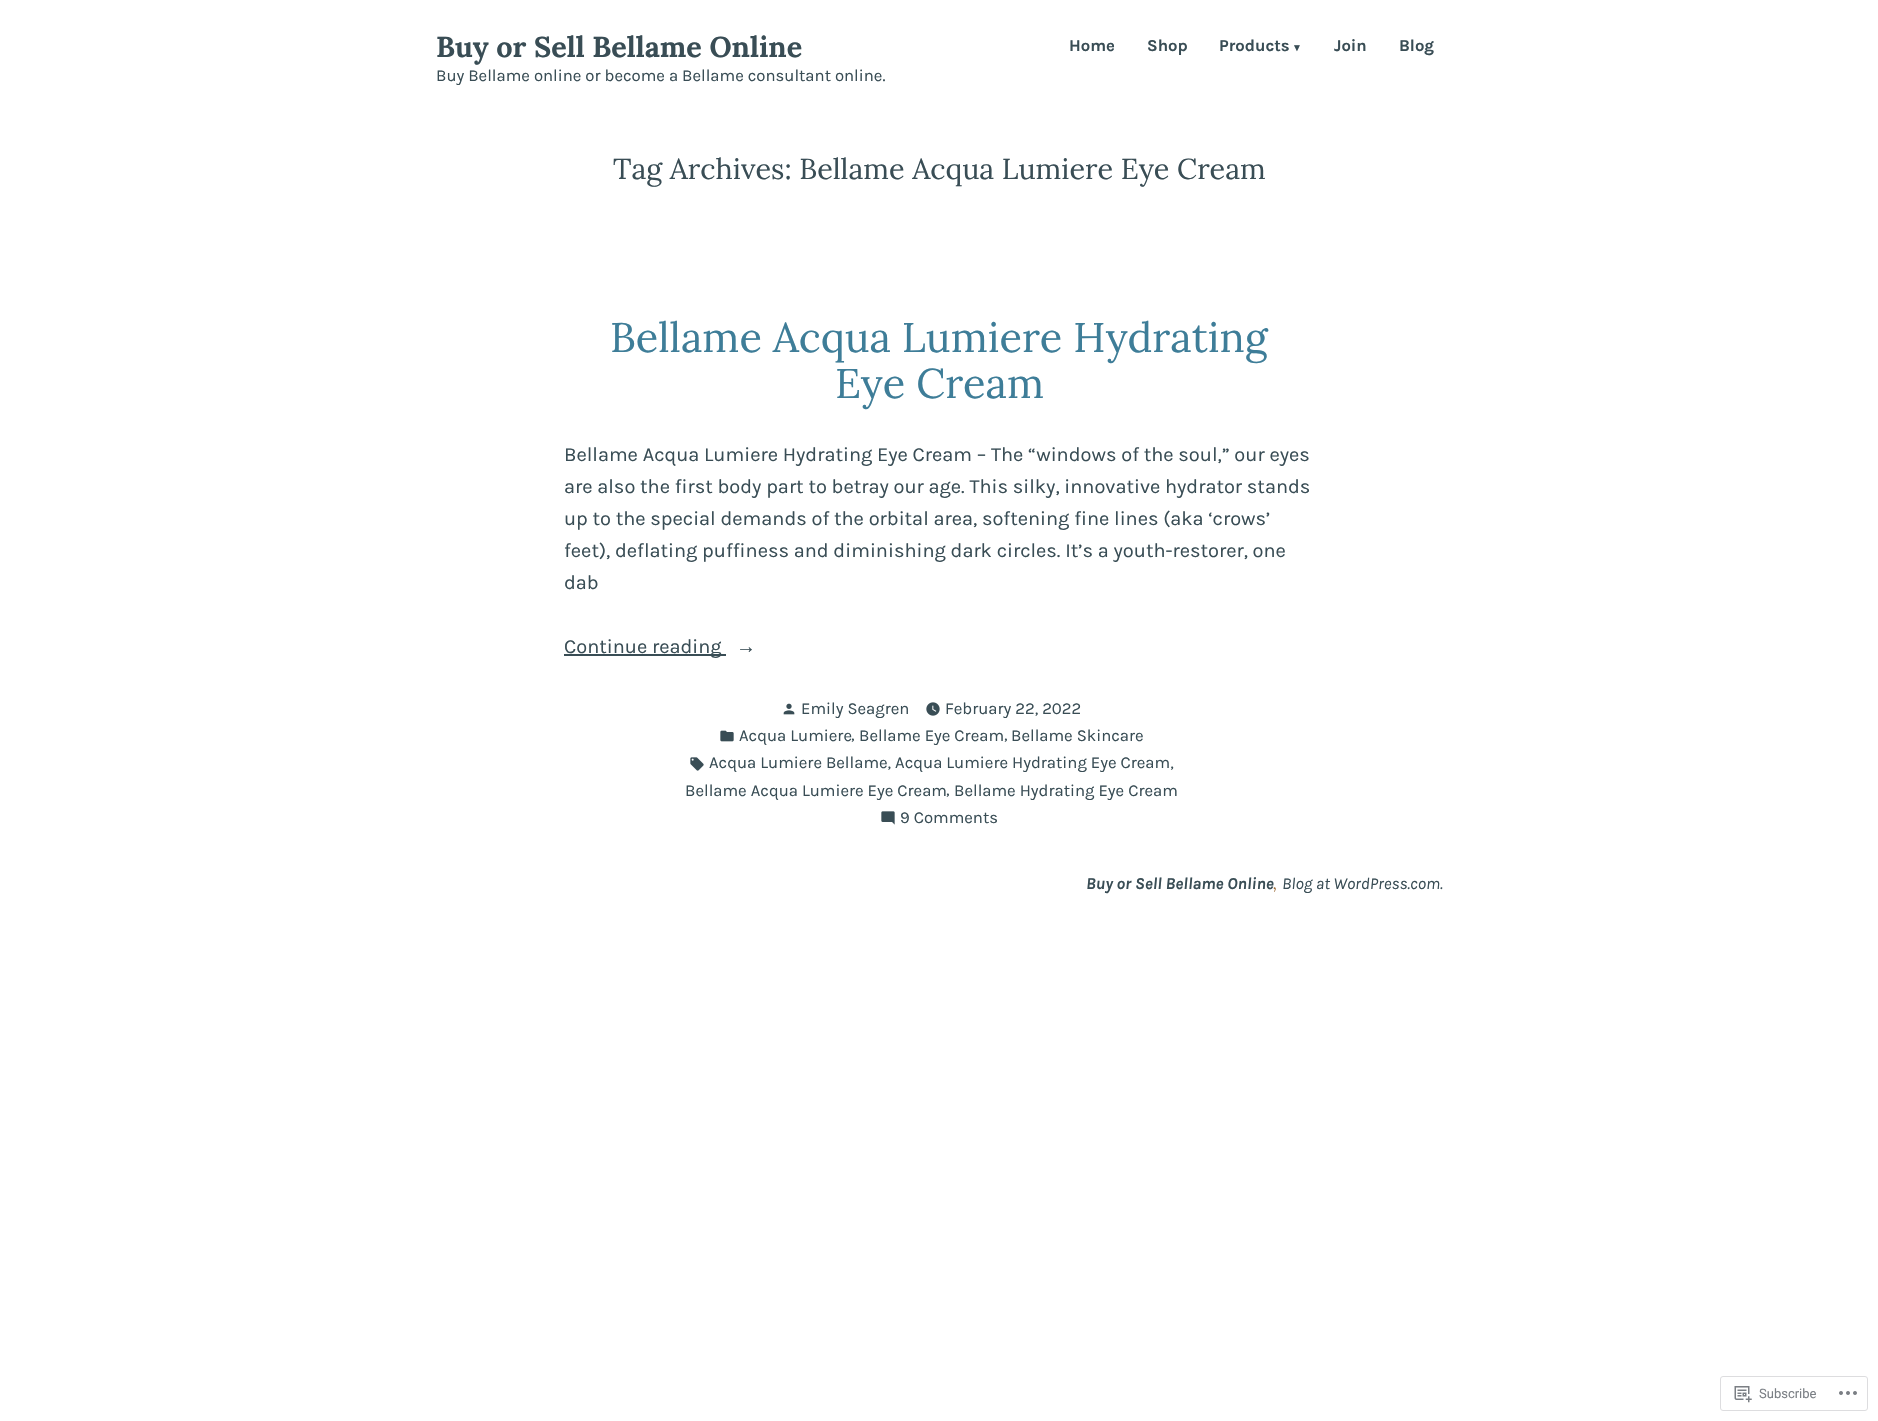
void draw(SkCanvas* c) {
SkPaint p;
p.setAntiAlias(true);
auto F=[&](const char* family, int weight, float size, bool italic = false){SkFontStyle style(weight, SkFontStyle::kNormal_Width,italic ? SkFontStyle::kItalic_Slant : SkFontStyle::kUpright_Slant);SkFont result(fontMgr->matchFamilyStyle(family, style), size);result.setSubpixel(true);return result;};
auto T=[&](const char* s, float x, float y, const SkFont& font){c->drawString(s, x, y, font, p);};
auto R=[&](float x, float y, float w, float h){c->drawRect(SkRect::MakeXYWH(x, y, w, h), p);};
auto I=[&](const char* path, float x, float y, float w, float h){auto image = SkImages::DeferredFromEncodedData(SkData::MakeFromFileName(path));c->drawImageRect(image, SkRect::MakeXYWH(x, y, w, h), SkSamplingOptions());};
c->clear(0xffffffff);
auto f1 = F("Lora",700,28.8);
p.setColor(0xff394d55);
T("Buy or Sell Bellame Online",436,57,f1);
auto f2 = F("Karla",700,16.7);
T("Home",1069,51,f2);
T("Shop",1147,51,f2);
T("Products",1219,51,f2);
auto f3 = F("Liberation Sans",700,10);
T("▼",1292,51,f3);
T("Join",1334,51,f2);
T("Blog",1399,51,f2);
auto f4 = F("Karla",400,16.7);
T("Buy Bellame online or become a Bellame consultant online.",436,81,f4);
auto f5 = F("Lora",400,28.8);
T("Tag Archives: Bellame Acqua Lumiere Eye Cream",613,179,f5);
auto f6 = F("Lora",400,41.5);
p.setColor(0xff3e7d98);
T("Bellame Acqua Lumiere Hydrating",610,352,f6);
T("Eye Cream",835,398,f6);
auto f7 = F("Karla",400,20);
p.setColor(0xff394d55);
T("Bellame Acqua Lumiere Hydrating Eye Cream – The “windows of the soul,” our eyes",564,461,f7);
T("are also the first body part to betray our age. This silky, innovative hydrator stands",564,493,f7);
T("up to the special demands of the orbital area, softening fine lines (aka ‘crows’",564,525,f7);
T("feet), deflating puffiness and diminishing dark circles. It’s a youth-restorer, one",564,557,f7);
T("dab",564,589,f7);
R(564,654,162,2);
T("Continue reading",564,653,f7);
auto f8 = F("Liberation Sans",400,20);
T("→",736,653,f8);
I("1.png",783,703,12,12);
T("Emily Seagren",801,714,f4);
I("2.png",926,702,14,14);
T("February 22, 2022",945,714,f4);
I("3.png",720,730,14,12);
T("Acqua Lumiere",739,741,f4);
T(",",851,740,f4);
T("Bellame Eye Cream",859,741,f4);
T(",",1004,740,f4);
T("Bellame Skincare",1011,741,f4);
I("4.png",690,757,14,14);
T("Acqua Lumiere Bellame, Acqua Lumiere Hydrating Eye Cream,",709,768,f4);
T("Bellame Acqua Lumiere Eye Cream",685,796,f4);
T(",",946,795,f4);
T("Bellame Hydrating Eye Cream",954,796,f4);
I("5.png",881,811,14,14);
T("9 Comments",900,823,f4);
auto f9 = F("Karla",700,16.7,true);
T("Buy or Sell Bellame Online",1086,889,f9);
auto f10 = F("Lora",400,16.7,true);
p.setColor(0xff9b6a36);
T(",",1273,889,f10);
auto f11 = F("Karla",400,16.7,true);
p.setColor(0xff394d55);
T("Blog at WordPress.com.",1282,889,f11);
p.setStroke(true);
p.setStrokeWidth(1);
p.setColor(0xffdddddf);
c->drawRoundRect(SkRect::MakeXYWH(1720.5,1376.5,147,34),2.5,2.5,p);
I("6.png",1734,1386,18,17);
auto f12 = F("Roboto",400,13);
p.setStroke(false);
p.setColor(0xff7b7f85);
T("Subscribe",1759,1398,f12);
I("7.png",1839,1391,18,4);
}
